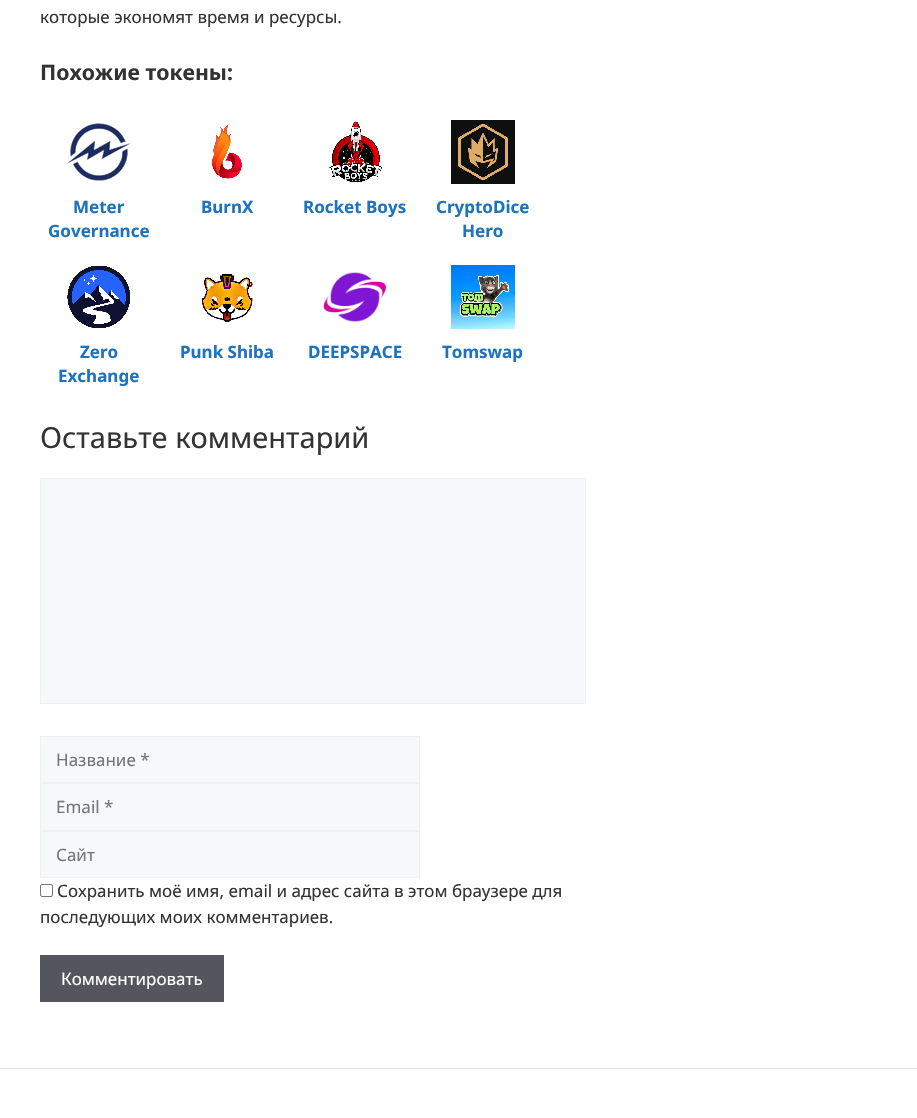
void draw(SkCanvas* c) {
SkPaint p;
p.setAntiAlias(true);
auto F=[&](const char* family, int weight, float size, bool italic = false){SkFontStyle style(weight, SkFontStyle::kNormal_Width,italic ? SkFontStyle::kItalic_Slant : SkFontStyle::kUpright_Slant);SkFont result(fontMgr->matchFamilyStyle(family, style), size);result.setSubpixel(true);return result;};
auto T=[&](const char* s, float x, float y, const SkFont& font){c->drawString(s, x, y, font, p);};
auto R=[&](float x, float y, float w, float h){c->drawRect(SkRect::MakeXYWH(x, y, w, h), p);};
auto I=[&](const char* path, float x, float y, float w, float h){auto image = SkImages::DeferredFromEncodedData(SkData::MakeFromFileName(path));c->drawImageRect(image, SkRect::MakeXYWH(x, y, w, h), SkSamplingOptions());};
c->clear(0xffffffff);
auto f1 = F("Noto Sans",400,17);
p.setColor(0xff333333);
T("которые экономят время и ресурсы.",40,23,f1);
auto f2 = F("Noto Sans",700,21.25);
T("Похожие токены:",40,80,f2);
I("1.png",67,123,64,58);
auto f3 = F("Noto Sans",700,17);
p.setColor(0xff1e73be);
T("Meter",73,213,f3);
T("Governance",48,237,f3);
I("2.png",211,124,31,56);
T("BurnX",201,213,f3);
I("3.png",329,121,53,61);
T("Rocket Boys",303,213,f3);
I("4.png",451,120,64,64);
T("CryptoDice",436,213,f3);
T("Hero",462,237,f3);
I("5.png",67,266,63,62);
T("Zero",80,358,f3);
T("Exchange",58,382,f3);
I("6.png",201,274,52,48);
T("Punk Shiba",180,358,f3);
I("7.png",323,272,64,50);
T("DEEPSPACE",308,358,f3);
I("8.png",451,265,64,64);
T("Tomswap",442,358,f3);
auto f4 = F("Noto Sans",400,29);
p.setColor(0xff333333);
T("Оставьте комментарий",40,448,f4);
p.setColor(0xfff7f8f9);
c->drawRect(SkRect::MakeXYWH(40.5,478.5,545,225),p);
p.setStroke(true);
p.setStrokeWidth(1);
p.setColor(0xfff0f0f0);
c->drawRect(SkRect::MakeXYWH(40.5,478.5,545,225),p);
p.setStroke(false);
p.setColor(0xfff7f8f9);
c->drawRect(SkRect::MakeXYWH(40.5,736.5,379,46),p);
p.setStroke(true);
p.setColor(0xfff0f0f0);
c->drawRect(SkRect::MakeXYWH(40.5,736.5,379,46),p);
p.setStroke(false);
p.setColor(0xff757575);
T("Название *",56,766,f1);
p.setColor(0xfff7f8f9);
c->drawRect(SkRect::MakeXYWH(40.5,783.5,379,47),p);
p.setStroke(true);
p.setColor(0xfff0f0f0);
c->drawRect(SkRect::MakeXYWH(40.5,783.5,379,47),p);
p.setStroke(false);
p.setColor(0xff757575);
T("Email *",56,813,f1);
p.setColor(0xfff7f8f9);
c->drawRect(SkRect::MakeXYWH(40.5,831.5,379,46),p);
p.setStroke(true);
p.setColor(0xfff0f0f0);
c->drawRect(SkRect::MakeXYWH(40.5,831.5,379,46),p);
p.setStroke(false);
p.setColor(0xff757575);
T("Сайт",56,861,f1);
p.setStroke(true);
p.setColor(0xff767676);
c->drawRoundRect(SkRect::MakeXYWH(40.5,884.5,12,12),1.5,1.5,p);
p.setStroke(false);
p.setColor(0xff333333);
T("Сохранить моё имя, email и адрес сайта в этом браузере для",57,897,f1);
T("последующих моих комментариев.",40,923,f1);
p.setColor(0xff55555e);
R(40,955,184,47);
p.setColor(0xffffffff);
T("Комментировать",61,985,f1);
p.setColor(0xffe3e3e3);
R(0,1068,917,1);
}
